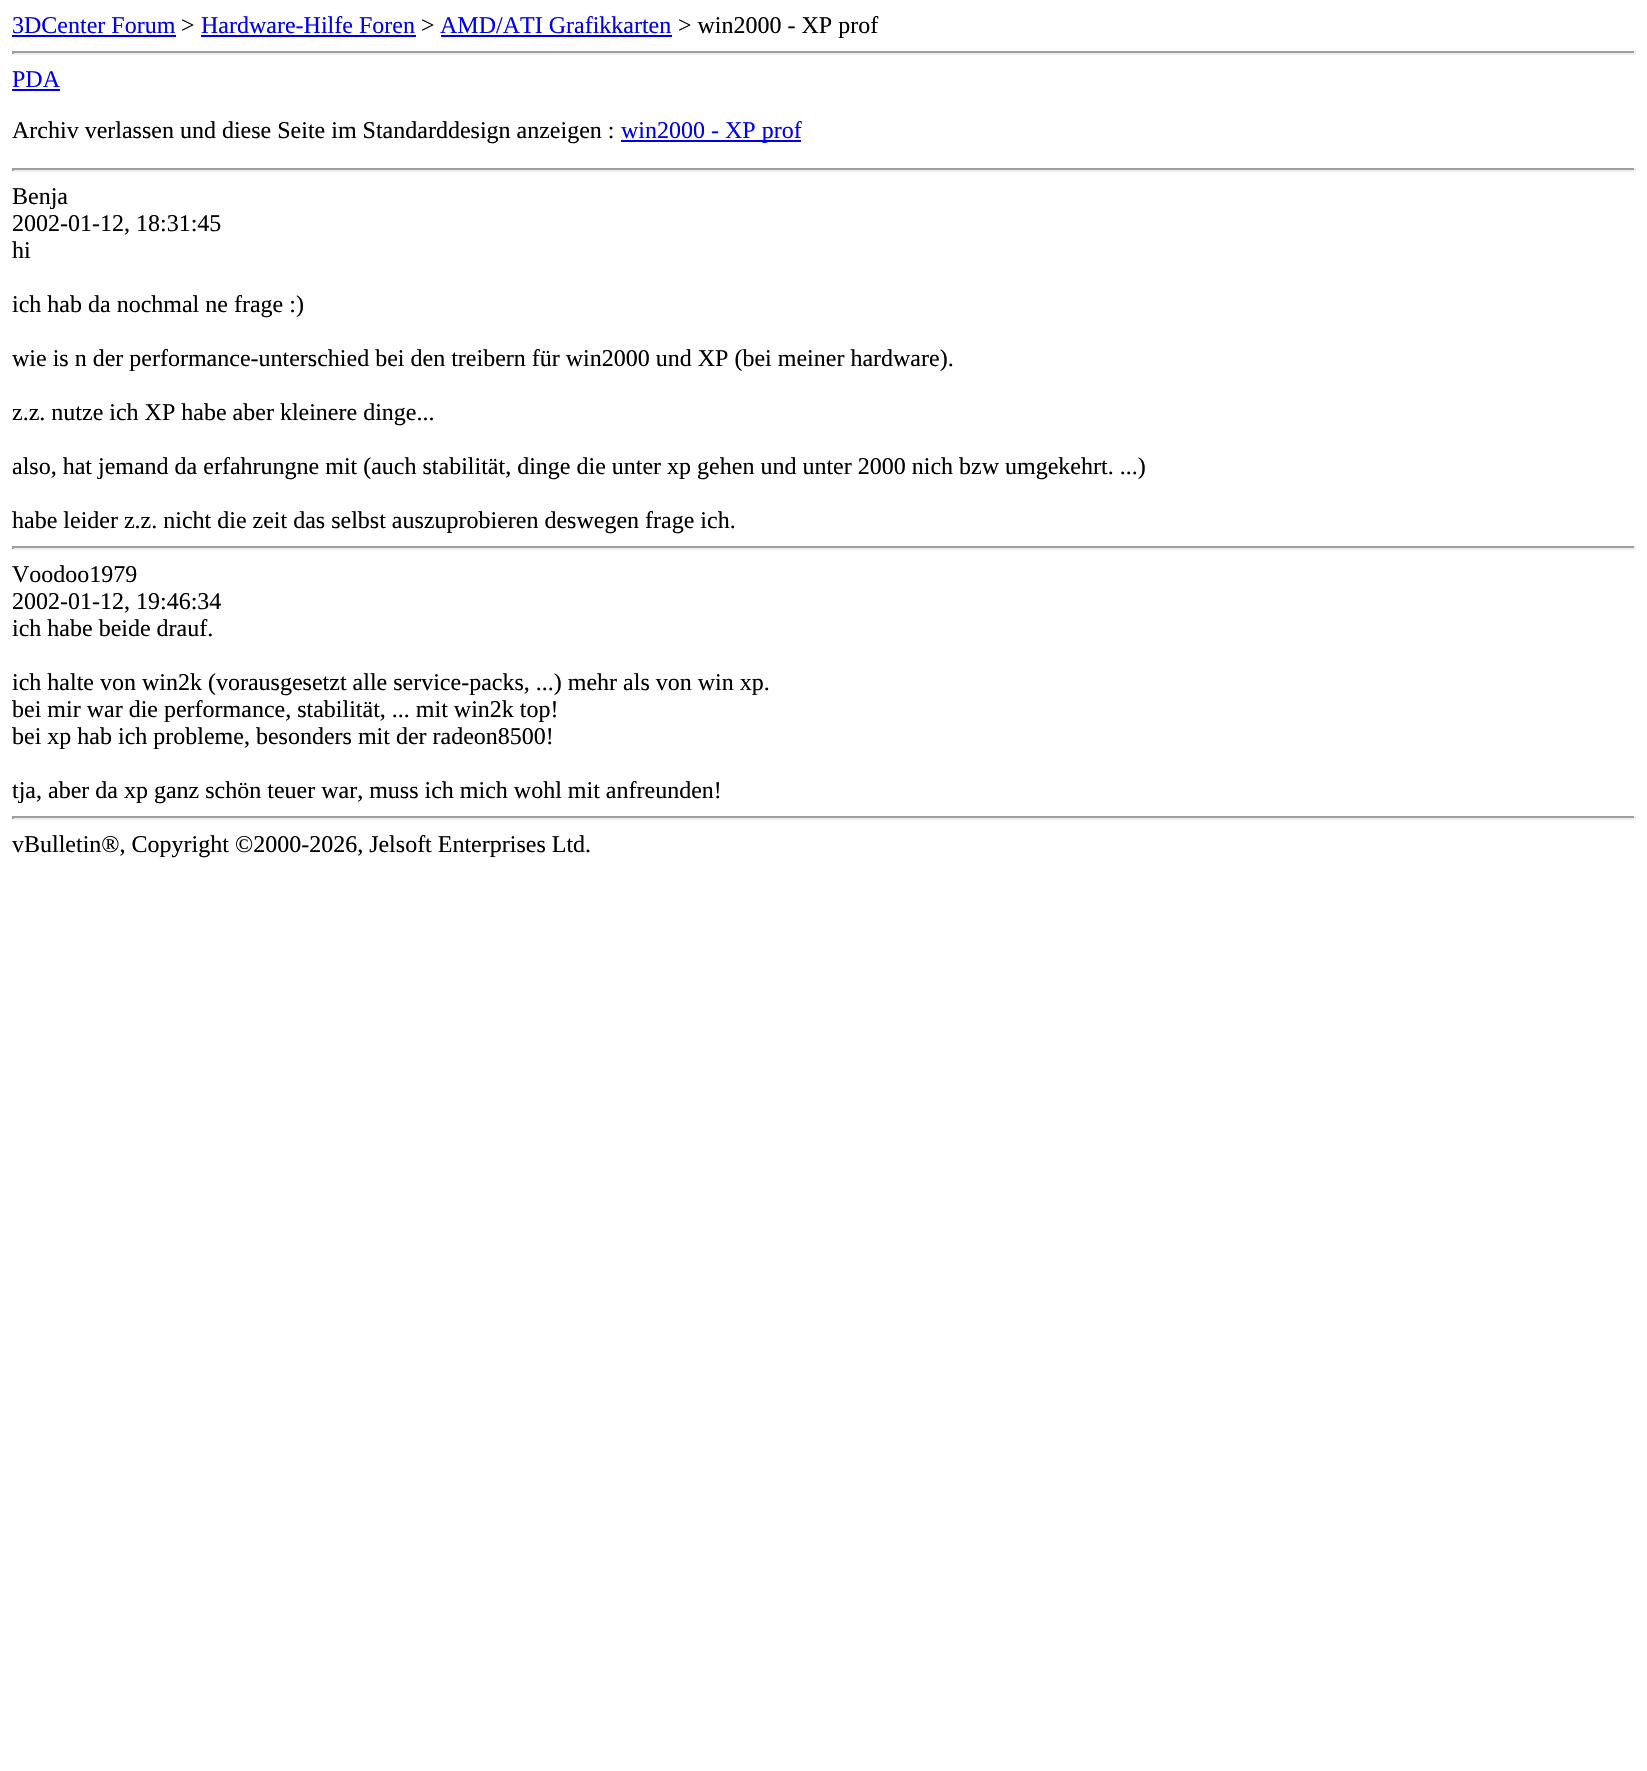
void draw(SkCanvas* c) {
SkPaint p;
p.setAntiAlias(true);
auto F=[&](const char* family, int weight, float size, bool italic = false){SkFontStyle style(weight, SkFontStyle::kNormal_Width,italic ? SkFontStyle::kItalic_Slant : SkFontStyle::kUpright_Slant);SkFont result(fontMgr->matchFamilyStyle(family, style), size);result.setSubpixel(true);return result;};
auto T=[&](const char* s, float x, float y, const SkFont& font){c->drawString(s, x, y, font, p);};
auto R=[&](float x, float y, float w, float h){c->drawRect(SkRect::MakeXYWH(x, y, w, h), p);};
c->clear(0xffffffff);
auto f1 = F("Liberation Serif",400,24);
p.setColor(0xff0000ee);
T("3DCenter Forum",12,33,f1);
R(12,35,164,2);
p.setColor(0xff000000);
T(">",181,33,f1);
p.setColor(0xff0000ee);
T("Hardware-Hilfe Foren",201,33,f1);
R(201,35,215,2);
p.setColor(0xff000000);
T(">",421,33,f1);
p.setColor(0xff0000ee);
T("AMD/ATI Grafikkarten",440,33,f1);
R(441,35,231,2);
p.setColor(0xff000000);
T("> win2000 - XP prof",678,33,f1);
p.setColor(0xff9f9f9f);
R(12,51,1623,2);
p.setColor(0xffeeeeee);
R(1634,51,2,3);
R(12,53,1623,2);
p.setColor(0xff9f9f9f);
R(12,51,2,3);
p.setColor(0xff0000ee);
T("PDA",12,87,f1);
R(12,89,48,2);
p.setColor(0xff000000);
T("Archiv verlassen und diese Seite im Standarddesign anzeigen :",12,138,f1);
p.setColor(0xff0000ee);
R(621,140,180,2);
T("win2000 - XP prof",621,138,f1);
p.setColor(0xff9f9f9f);
R(12,168,1623,2);
p.setColor(0xffeeeeee);
R(1634,168,2,3);
R(12,170,1623,2);
p.setColor(0xff9f9f9f);
R(12,168,2,3);
p.setColor(0xff000000);
T("Benja",12,204,f1);
T("2002-01-12, 18:31:45",12,231,f1);
T("hi",12,258,f1);
T("ich hab da nochmal ne frage :)",12,312,f1);
T("wie is n der performance-unterschied bei den treibern für win2000 und XP (bei meiner hardware).",12,366,f1);
T("z.z. nutze ich XP habe aber kleinere dinge...",12,420,f1);
T("also, hat jemand da erfahrungne mit (auch stabilität, dinge die unter xp gehen und unter 2000 nich bzw umgekehrt. ...)",12,474,f1);
T("habe leider z.z. nicht die zeit das selbst auszuprobieren deswegen frage ich.",12,528,f1);
p.setColor(0xff9f9f9f);
R(12,546,1623,2);
p.setColor(0xffeeeeee);
R(1634,546,2,3);
R(12,548,1623,2);
p.setColor(0xff9f9f9f);
R(12,546,2,3);
p.setColor(0xff000000);
T("Voodoo1979",12,582,f1);
T("2002-01-12, 19:46:34",12,609,f1);
T("ich habe beide drauf.",12,636,f1);
T("ich halte von win2k (vorausgesetzt alle service-packs, ...) mehr als von win xp.",12,690,f1);
T("bei mir war die performance, stabilität, ... mit win2k top!",12,717,f1);
T("bei xp hab ich probleme, besonders mit der radeon8500!",12,744,f1);
T("tja, aber da xp ganz schön teuer war, muss ich mich wohl mit anfreunden!",12,798,f1);
p.setColor(0xff9f9f9f);
R(12,816,1623,2);
p.setColor(0xffeeeeee);
R(1634,816,2,3);
R(12,818,1623,2);
p.setColor(0xff9f9f9f);
R(12,816,2,3);
p.setColor(0xff000000);
T("vBulletin®, Copyright ©2000-2026, Jelsoft Enterprises Ltd.",12,852,f1);
}
